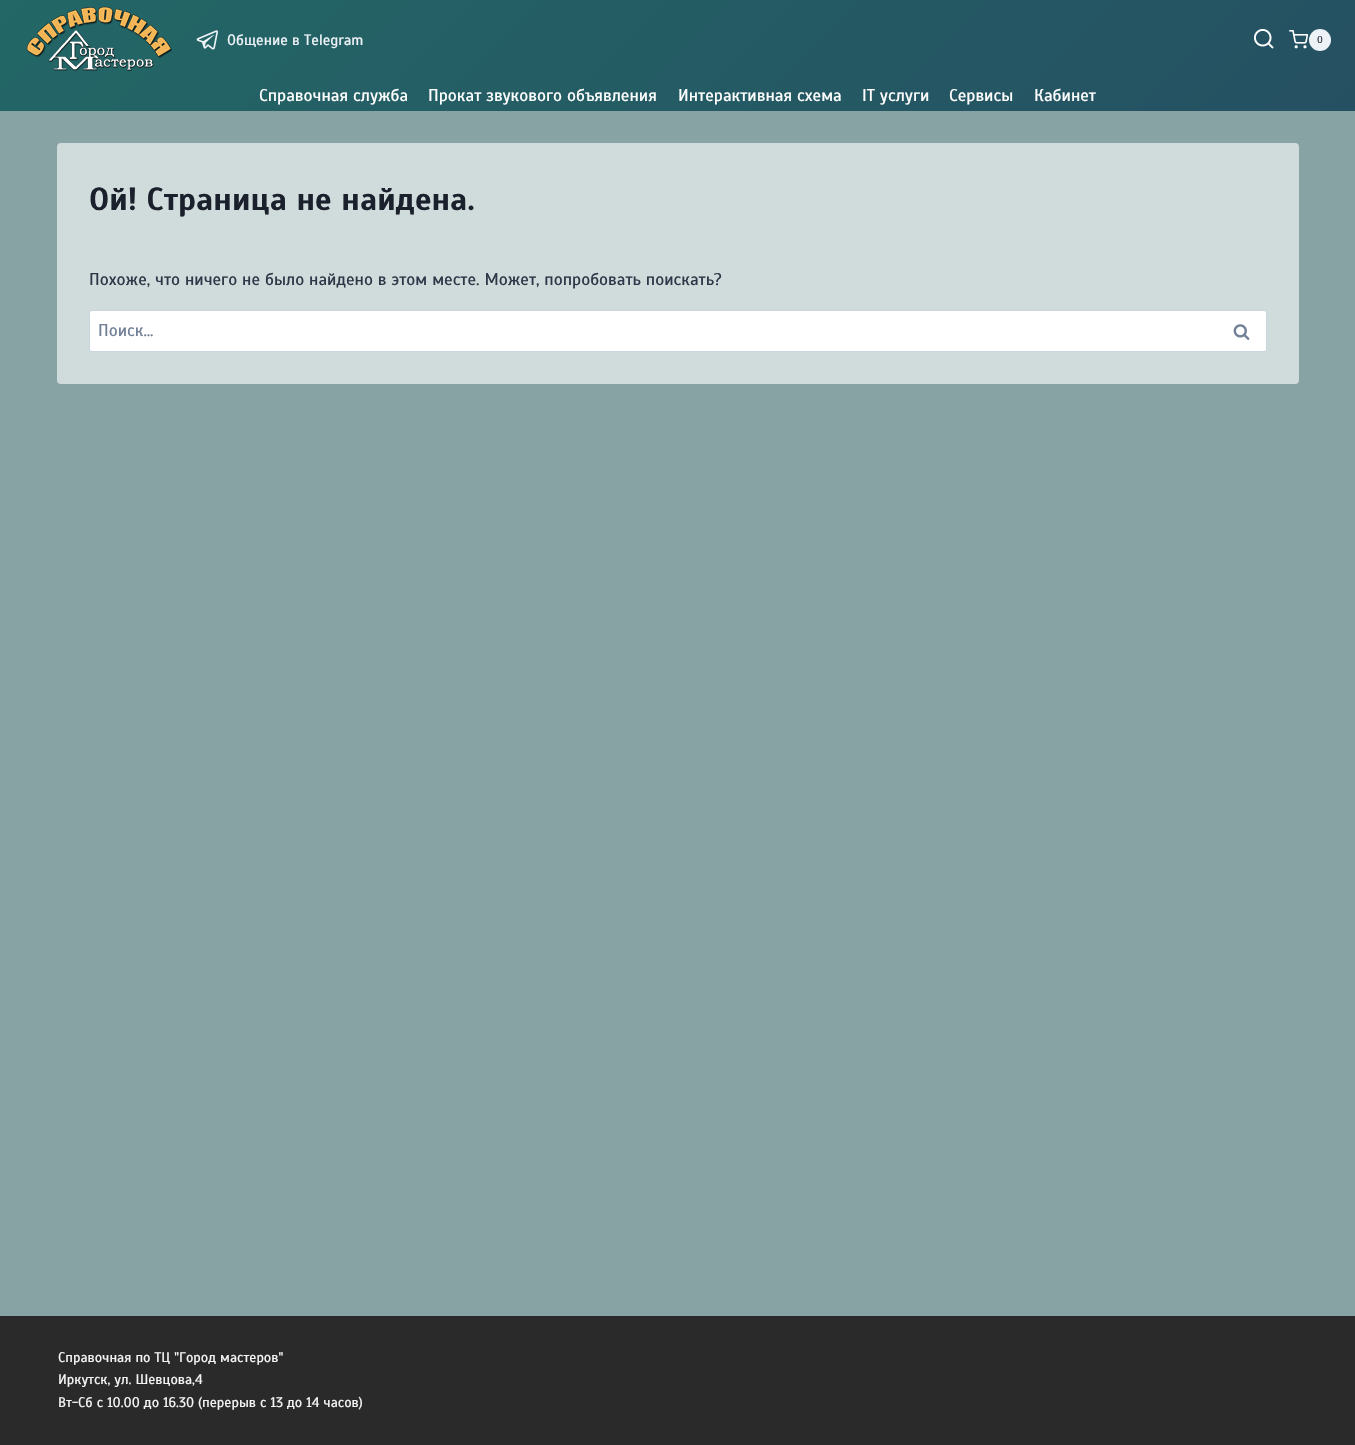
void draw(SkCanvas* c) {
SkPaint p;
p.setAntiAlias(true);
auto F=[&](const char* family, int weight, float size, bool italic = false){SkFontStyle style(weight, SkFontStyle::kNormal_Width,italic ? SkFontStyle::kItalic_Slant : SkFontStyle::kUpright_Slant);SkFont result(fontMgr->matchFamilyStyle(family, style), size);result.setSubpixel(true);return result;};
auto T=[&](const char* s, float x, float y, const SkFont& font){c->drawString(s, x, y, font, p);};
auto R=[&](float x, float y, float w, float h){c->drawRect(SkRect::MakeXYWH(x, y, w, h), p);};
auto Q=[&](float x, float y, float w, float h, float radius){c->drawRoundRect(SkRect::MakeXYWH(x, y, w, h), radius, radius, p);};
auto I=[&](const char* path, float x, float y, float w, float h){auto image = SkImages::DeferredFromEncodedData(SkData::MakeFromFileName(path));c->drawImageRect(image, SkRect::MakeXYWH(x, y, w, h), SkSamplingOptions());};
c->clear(0xff87a3a3);
{
const SkColor colors[] = {0xff236766,0xff255062};
const float stops[] = {0,1};
const SkPoint ends[] = {{311,-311}, {1044,422}};
p.setShader(SkGradientShader::MakeLinear(ends, colors, stops, 2, SkTileMode::kClamp));
p.setAlpha(255);
}
R(0,0,1355,111);
I("1.png",26,6,146,65);
I("2.png",196,30,22,20);
auto f1 = F("Scada",400,15);
p.setShader(nullptr);
p.setColor(0xffedf2f7);
T("Общение в Telegram",227,45,f1);
I("3.png",1253,28,21,21);
I("4.png",1289,30,19,19);
c->drawCircle(1320,40,11,p);
auto f2 = F("Scada",400,10);
p.setColor(0xff2d3748);
T("0",1317,43,f2);
auto f3 = F("Scada",400,17);
p.setColor(0xffffffff);
T("Справочная служба",259,101,f3);
T("Прокат звукового объявления",428,101,f3);
T("Интерактивная схема",678,101,f3);
T("IT услуги",862,101,f3);
T("Сервисы",949,101,f3);
T("Кабинет",1034,101,f3);
p.setColor(0xffd0dbdb);
Q(57,143,1242,241,4);
auto f4 = F("Scada",700,32);
p.setColor(0xff1a202c);
T("Ой! Страница не найдена.",89,210,f4);
p.setColor(0xff2d3748);
T("Похоже, что ничего не было найдено в этом месте. Может, попробовать поискать?",89,285,f3);
p.setColor(0xffffffff);
c->drawRoundRect(SkRect::MakeXYWH(89.5,310.5,1177,41),2.5,2.5,p);
p.setStroke(true);
p.setStrokeWidth(1);
p.setColor(0xffcbd5e0);
c->drawRoundRect(SkRect::MakeXYWH(89.5,310.5,1177,41),2.5,2.5,p);
p.setStroke(false);
p.setColor(0xff718096);
T("Поиск…",98,336,f3);
I("5.png",1233,324,17,16);
p.setColor(0xff2a2a2a);
R(0,1316,1355,129);
auto f5 = F("Scada",400,14);
p.setColor(0xfff4f4f4);
T("Справочная по ТЦ \"Город мастеров\"",58,1362,f5);
T("Иркутск, ул. Шевцова,4",58,1384,f5);
T("Вт-Сб с 10.00 до 16.30 (перерыв с 13 до 14 часов)",58,1407,f5);
}
